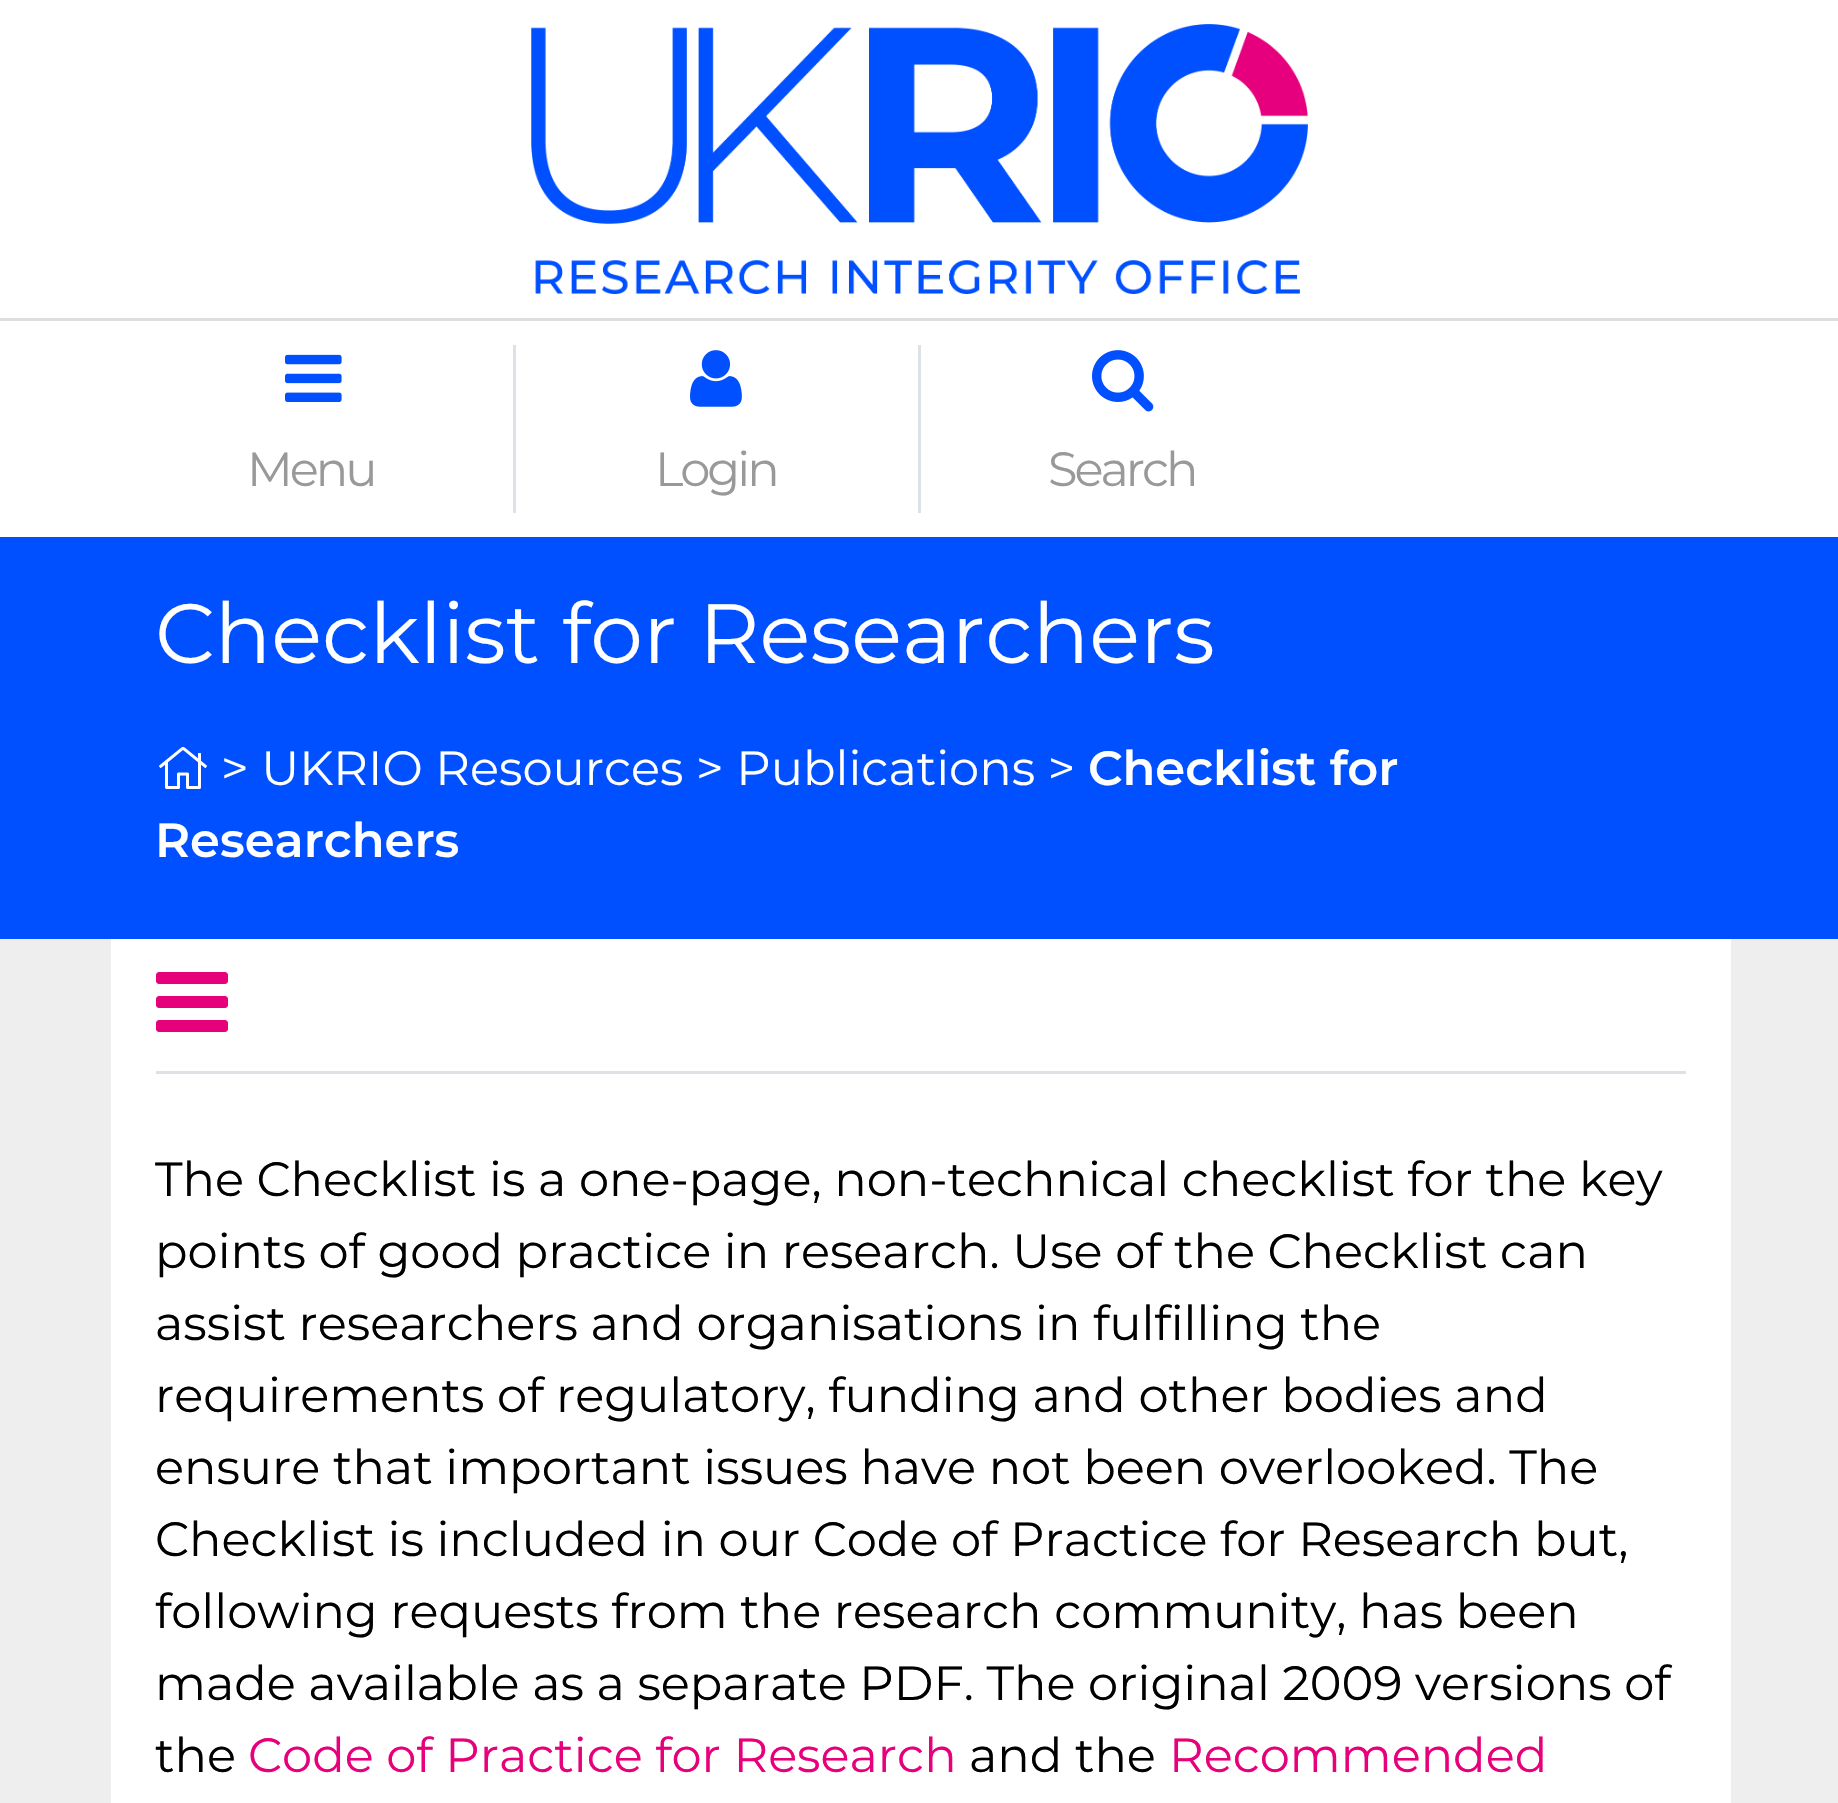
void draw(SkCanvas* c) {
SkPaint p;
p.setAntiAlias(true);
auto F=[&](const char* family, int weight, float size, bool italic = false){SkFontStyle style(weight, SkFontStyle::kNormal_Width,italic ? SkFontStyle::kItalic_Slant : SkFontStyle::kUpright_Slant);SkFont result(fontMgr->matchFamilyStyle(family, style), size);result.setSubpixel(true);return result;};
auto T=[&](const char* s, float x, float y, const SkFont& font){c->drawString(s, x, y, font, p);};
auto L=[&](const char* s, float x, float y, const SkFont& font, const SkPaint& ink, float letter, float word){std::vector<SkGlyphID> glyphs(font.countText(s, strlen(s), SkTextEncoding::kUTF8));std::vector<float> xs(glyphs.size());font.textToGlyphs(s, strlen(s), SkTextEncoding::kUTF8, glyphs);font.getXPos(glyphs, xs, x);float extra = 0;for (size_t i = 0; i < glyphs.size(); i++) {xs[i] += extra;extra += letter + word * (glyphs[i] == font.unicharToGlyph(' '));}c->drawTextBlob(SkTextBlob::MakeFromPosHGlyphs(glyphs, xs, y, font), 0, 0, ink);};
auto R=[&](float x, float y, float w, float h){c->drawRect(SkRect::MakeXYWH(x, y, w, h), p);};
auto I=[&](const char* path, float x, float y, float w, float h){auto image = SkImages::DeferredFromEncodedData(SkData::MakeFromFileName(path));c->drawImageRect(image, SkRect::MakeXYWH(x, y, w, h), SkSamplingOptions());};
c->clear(0xffffffff);
I("1.png",531,24,777,270);
p.setColor(0xffdddddd);
R(0,318,1838,3);
p.setColor(0xffdee2e6);
R(513,345,3,168);
I("2.png",285,354,57,48);
auto f1 = F("Montserrat",400,48);
p.setColor(0xff999999);
L("Menu",247,486,f1,p,-3,0);
p.setColor(0xffdee2e6);
R(918,345,3,168);
I("3.png",690,350,52,57);
p.setColor(0xff999999);
L("Login",655,486,f1,p,-3,0);
I("4.png",1092,350,62,62);
L("Search",1048,486,f1,p,-3,0);
p.setColor(0xffeeeeee);
R(0,939,1838,864);
p.setColor(0xff0050ff);
R(0,537,1838,402);
auto f2 = F("Montserrat",400,84);
p.setColor(0xffffffff);
T("Checklist for Researchers",155,663,f2);
I("5.png",159,747,48,42);
T("> UKRIO Resources > Publications >",221,785,f1);
auto f3 = F("Montserrat",600,48);
T("Checklist for",1088,785,f3);
T("Researchers",155,857,f3);
R(111,939,1620,864);
p.setColor(0xffdee2e6);
R(156,1071,1530,3);
I("6.png",156,972,72,60);
p.setColor(0xff000000);
T("The Checklist is a one-page, non-technical checklist for the key",155,1196,f1);
T("points of good practice in research. Use of the Checklist can",155,1268,f1);
T("assist researchers and organisations in fulfilling the",155,1340,f1);
T("requirements of regulatory, funding and other bodies and",155,1412,f1);
T("ensure that important issues have not been overlooked. The",155,1484,f1);
T("Checklist is included in our Code of Practice for Research but,",155,1556,f1);
T("following requests from the research community, has been",155,1628,f1);
T("made available as a separate PDF. The original 2009 versions of",155,1700,f1);
T("the",155,1772,f1);
p.setColor(0xffe7007b);
T("Code of Practice for Research",248,1772,f1);
p.setColor(0xff000000);
T("and the",969,1772,f1);
p.setColor(0xffe7007b);
T("Recommended",1169,1772,f1);
}
